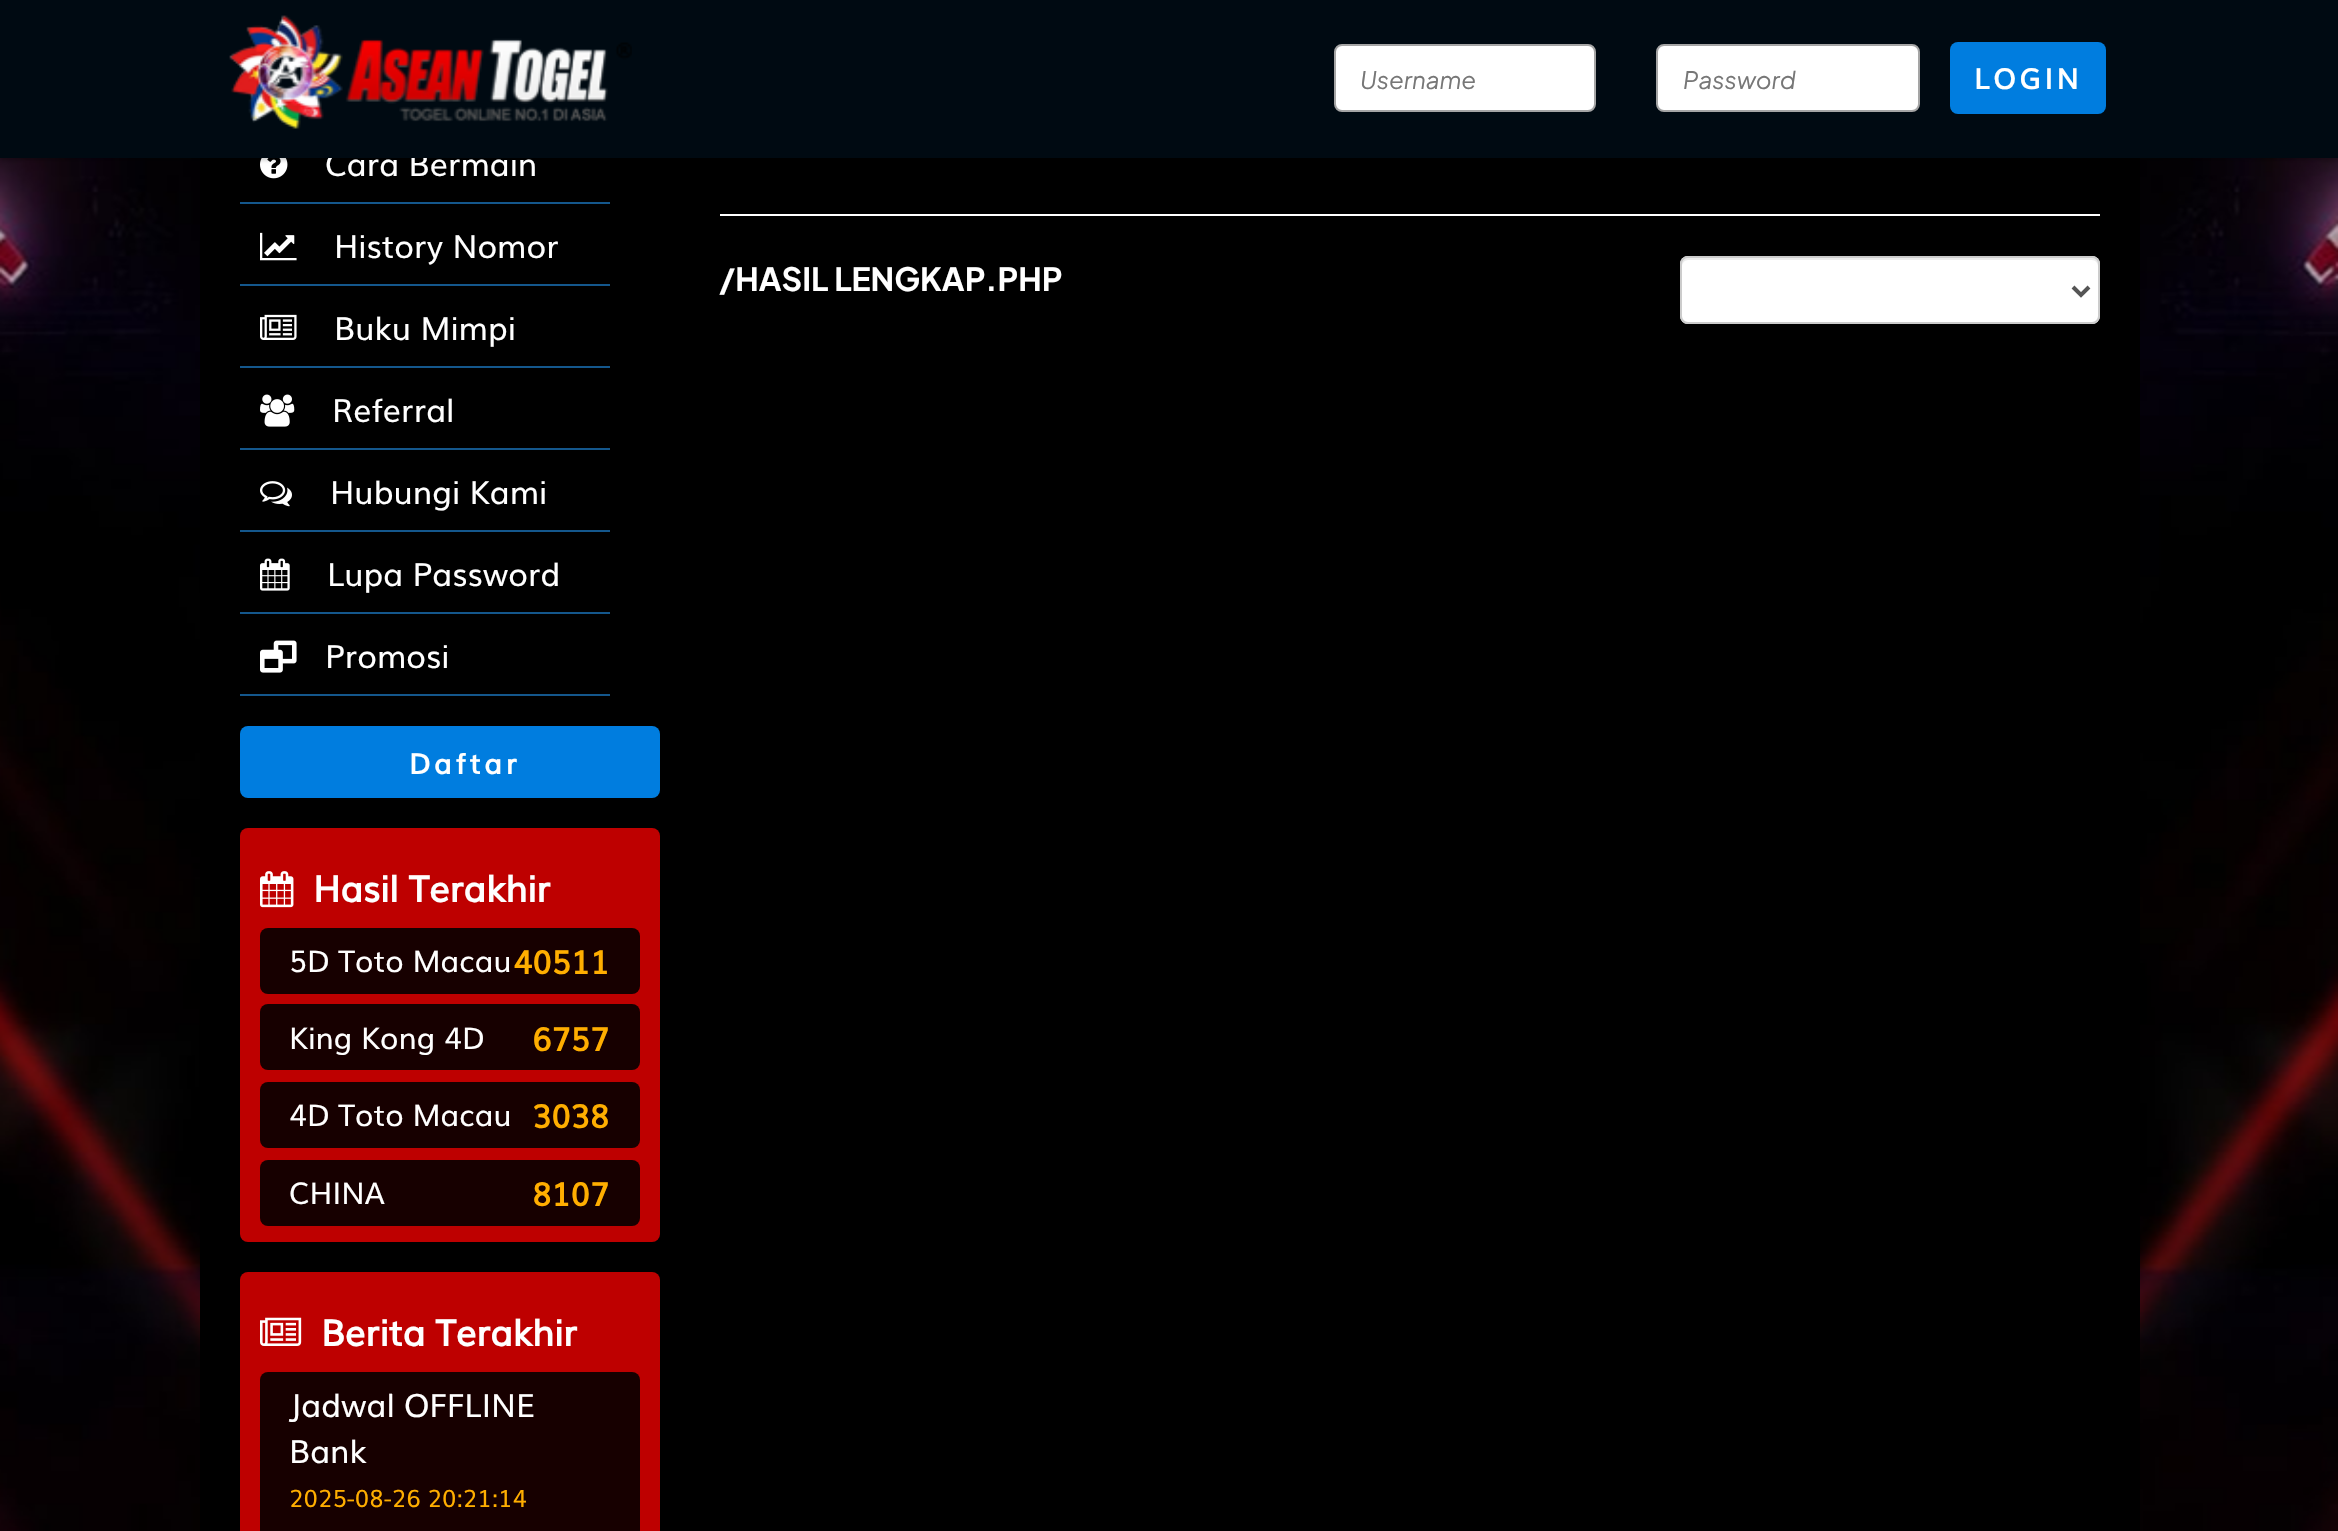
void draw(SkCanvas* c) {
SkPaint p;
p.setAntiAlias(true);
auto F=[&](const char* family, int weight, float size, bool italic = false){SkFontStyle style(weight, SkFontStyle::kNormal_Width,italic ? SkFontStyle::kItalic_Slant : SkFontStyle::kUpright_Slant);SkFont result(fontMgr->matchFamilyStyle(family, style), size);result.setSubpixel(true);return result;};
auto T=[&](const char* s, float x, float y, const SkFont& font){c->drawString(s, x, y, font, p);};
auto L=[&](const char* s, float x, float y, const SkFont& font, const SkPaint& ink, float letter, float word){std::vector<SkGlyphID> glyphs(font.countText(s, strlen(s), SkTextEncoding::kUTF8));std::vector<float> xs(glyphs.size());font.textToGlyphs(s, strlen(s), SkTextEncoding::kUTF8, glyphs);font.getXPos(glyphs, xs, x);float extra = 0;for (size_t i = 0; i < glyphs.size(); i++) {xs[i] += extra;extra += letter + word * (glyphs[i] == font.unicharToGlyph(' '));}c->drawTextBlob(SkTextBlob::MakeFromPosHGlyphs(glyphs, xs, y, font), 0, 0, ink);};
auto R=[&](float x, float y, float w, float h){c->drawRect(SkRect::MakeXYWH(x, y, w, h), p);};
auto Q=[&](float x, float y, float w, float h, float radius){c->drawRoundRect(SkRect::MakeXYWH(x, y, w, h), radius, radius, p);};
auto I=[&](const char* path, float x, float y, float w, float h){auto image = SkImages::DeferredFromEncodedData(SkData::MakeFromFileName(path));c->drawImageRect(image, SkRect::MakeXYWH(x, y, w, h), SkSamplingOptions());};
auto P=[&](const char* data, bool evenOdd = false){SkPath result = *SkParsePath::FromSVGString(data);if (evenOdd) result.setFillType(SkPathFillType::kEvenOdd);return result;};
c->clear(0xffffffff);
I("1.png",0,158,2338,1373);
p.setColor(0xff000000);
R(200,158,1940,1373);
I("3.png",260,158,28,21);
p.setColor(0x38000000);
p.setMaskFilter(SkMaskFilter::MakeBlur(kNormal_SkBlurStyle, 2));
c->drawRect(SkRect::MakeXYWH(0,2,2338,158),p);
p.setMaskFilter(nullptr);
auto f1 = F("Muli",400,32);
p.setColor(0xffffffff);
T("Cara Bermain",325,176,f1);
p.setColor(0xff000a12);
R(0,0,2338,158);
I("2.png",229,15,403,114);
p.setColor(0xffffffff);
c->drawRoundRect(SkRect::MakeXYWH(1335,45,260,66),7,7,p);
p.setStroke(true);
p.setStrokeWidth(2);
p.setColor(0xffa5a5a5);
c->drawRoundRect(SkRect::MakeXYWH(1335,45,260,66),7,7,p);
auto f2 = F("Plus Jakarta Sans",400,24,true);
p.setStroke(false);
p.setColor(0xff777777);
T("Username",1360,89,f2);
p.setColor(0xffffffff);
c->drawRoundRect(SkRect::MakeXYWH(1657,45,262,66),7,7,p);
p.setStroke(true);
p.setColor(0xffa5a5a5);
c->drawRoundRect(SkRect::MakeXYWH(1657,45,262,66),7,7,p);
p.setStroke(false);
p.setColor(0xff777777);
T("Password",1683,89,f2);
p.setColor(0xff007ddf);
Q(1950,42,156,72,8);
auto f3 = F("Muli",700,28);
p.setColor(0xffffffff);
L("LOGIN",1974,89,f3,p,4,0);
p.setColor(0xff14578c);
R(240,202,370,2);
R(240,284,370,2);
I("4.png",260,232,37,29);
p.setColor(0xffffffff);
T("History Nomor",334,258,f1);
p.setColor(0xff14578c);
R(240,366,370,2);
I("5.png",260,314,37,26);
p.setColor(0xffffffff);
T("Buku Mimpi",334,340,f1);
p.setColor(0xff14578c);
R(240,448,370,2);
I("6.png",260,394,35,33);
p.setColor(0xffffffff);
T("Referral",332,422,f1);
p.setColor(0xff14578c);
R(240,530,370,2);
I("7.png",260,481,32,26);
p.setColor(0xffffffff);
T("Hubungi Kami",330,504,f1);
p.setColor(0xff14578c);
R(240,612,370,2);
I("8.png",260,558,30,33);
p.setColor(0xffffffff);
T("Lupa Password",327,586,f1);
p.setColor(0xff14578c);
R(240,694,370,2);
I("9.png",260,640,37,33);
p.setColor(0xffffffff);
T("Promosi",325,668,f1);
p.setColor(0xff007ddf);
Q(240,726,420,72,8);
p.setColor(0xffffffff);
L("Daftar",409,774,f3,p,4,0);
p.setColor(0xffbe0000);
Q(240,828,420,414,8);
I("10.png",260,871,34,37);
auto f4 = F("Muli",700,36);
p.setColor(0xffffffff);
T("Hasil Terakhir",313,902,f4);
p.setColor(0xff170000);
Q(260,928,380,66,8);
auto f5 = F("Muli",400,30);
p.setColor(0xffffffff);
T("5D Toto Macau",289,972,f5);
auto f6 = F("Muli",700,32);
p.setColor(0xffffae00);
T("40511",513,974,f6);
p.setColor(0xff170000);
Q(260,1004,380,66,8);
p.setColor(0xffffffff);
T("King Kong 4D",289,1049,f5);
p.setColor(0xffffae00);
T("6757",532,1051,f6);
p.setColor(0xff170000);
Q(260,1082,380,66,8);
p.setColor(0xffffffff);
T("4D Toto Macau",289,1126,f5);
p.setColor(0xffffae00);
T("3038",532,1128,f6);
p.setColor(0xff170000);
Q(260,1160,380,66,8);
p.setColor(0xffffffff);
T("CHINA",289,1204,f5);
p.setColor(0xffffae00);
T("8107",532,1206,f6);
p.setColor(0xffbe0000);
Q(240,1272,420,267,8);
I("11.png",260,1317,42,29);
p.setColor(0xffffffff);
T("Berita Terakhir",321,1346,f4);
p.setColor(0xff170000);
Q(260,1372,380,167,8);
p.setColor(0xffffffff);
T("Jadwal OFFLINE",289,1417,f1);
T("Bank",289,1463,f1);
auto f7 = F("Muli",400,24);
p.setColor(0xffffae00);
T("2025-08-26 20:21:14",289,1507,f7);
p.setColor(0xffffffff);
R(720,214,1380,2);
auto f8 = F("Plus Jakarta Sans",700,32);
T("/HASIL LENGKAP.PHP",719,291,f8);
Q(1680,256,420,68,8);
p.setColor(0xffececec);
c->drawPath(P("M1688 260h404c3 0 6 3 6 6v-2c0-3-3-6-6-6h-404c-3 0-6 3-6 6v2c0-3 3-6 6-6z"),p);
p.setStroke(true);
p.setColor(0xffcccccc);
c->drawRoundRect(SkRect::MakeXYWH(1681,257,418,66),7,7,p);
p.setStrokeWidth(4);
p.setColor(0xff555555);
c->drawPath(P("M2073 287l8 8l8-8"),p);
}
